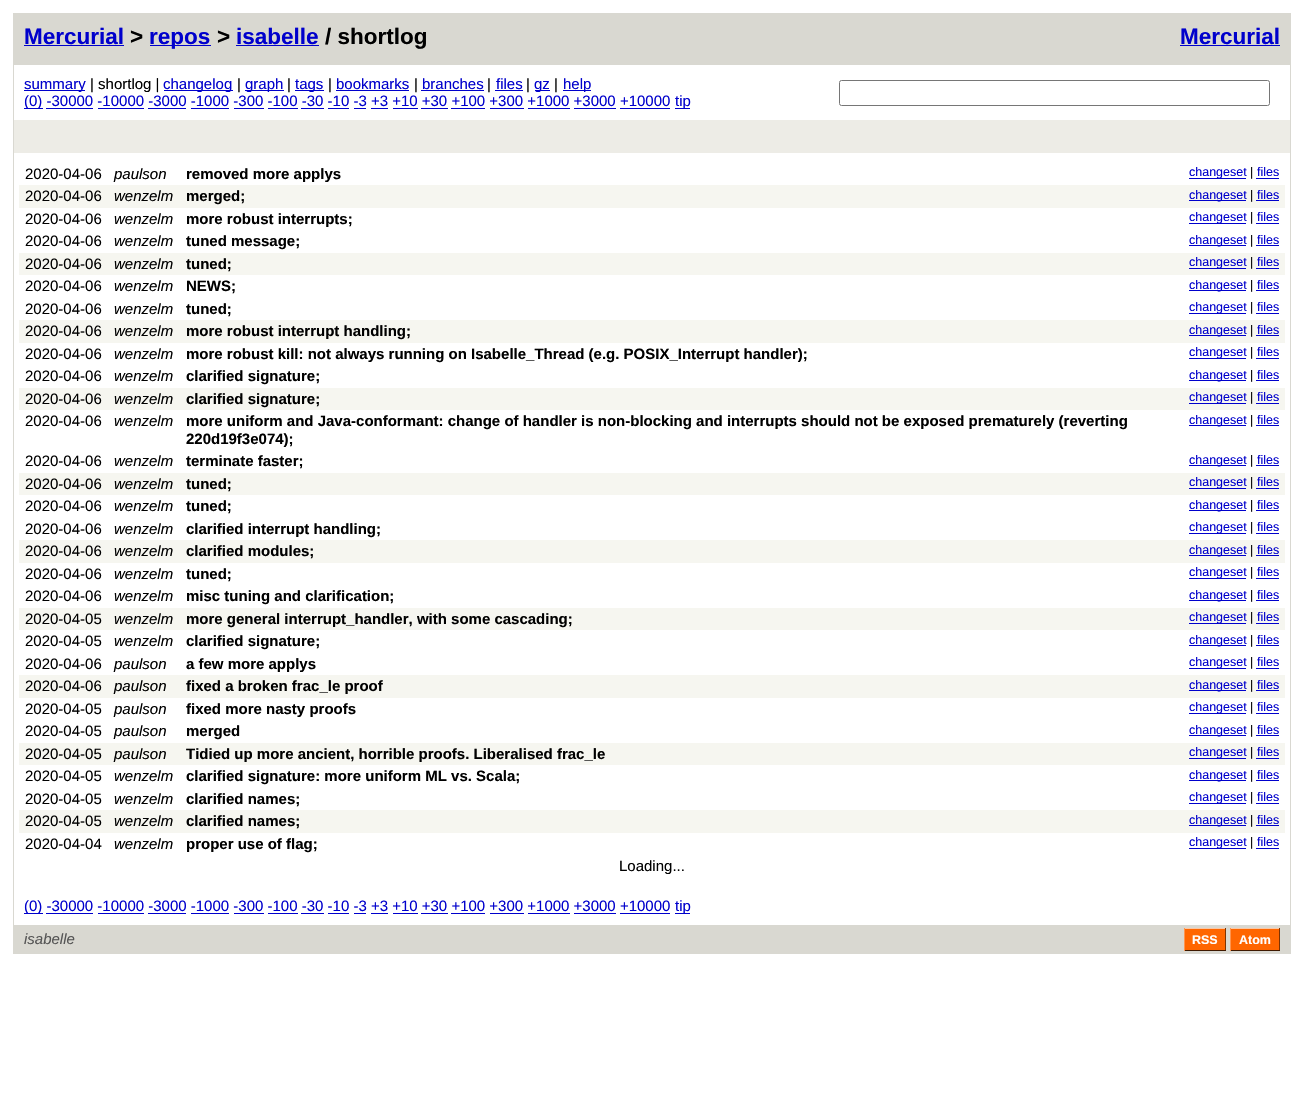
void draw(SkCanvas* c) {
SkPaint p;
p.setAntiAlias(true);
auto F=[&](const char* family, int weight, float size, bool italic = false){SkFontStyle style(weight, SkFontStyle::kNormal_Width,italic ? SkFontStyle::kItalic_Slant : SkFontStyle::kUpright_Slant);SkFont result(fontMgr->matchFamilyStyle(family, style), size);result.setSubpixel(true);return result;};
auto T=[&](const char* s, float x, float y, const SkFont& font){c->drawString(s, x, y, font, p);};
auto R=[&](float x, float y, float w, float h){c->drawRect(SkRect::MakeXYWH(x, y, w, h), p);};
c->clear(0xffffffff);
p.setStroke(true);
p.setStrokeWidth(1);
p.setColor(0xffd9d8d1);
c->drawRect(SkRect::MakeXYWH(13.5,13.5,1277,940),p);
p.setStroke(false);
R(14,14,1276,51);
auto f1 = F("Liberation Sans",700,22.5);
p.setColor(0xff0000cc);
T("Mercurial",24,44,f1);
R(24,45,100,1);
p.setColor(0xff000000);
T(">",130,44,f1);
p.setColor(0xff0000cc);
R(150,45,61,1);
T("repos",149,44,f1);
p.setColor(0xff000000);
T(">",217,44,f1);
p.setColor(0xff0000cc);
T("isabelle",236,44,f1);
R(236,45,83,1);
p.setColor(0xff000000);
T("/ shortlog",325,44,f1);
p.setColor(0xff0000cc);
T("Mercurial",1180,44,f1);
R(1180,45,100,1);
R(24,90,61,1);
auto f2 = F("Liberation Sans",400,15);
T("summary",24,89,f2);
p.setColor(0xff000000);
T("| shortlog |",90,89,f2);
p.setColor(0xff0000cc);
R(164,90,69,1);
T("changelog",163,89,f2);
p.setColor(0xff000000);
T("|",237,89,f2);
p.setColor(0xff0000cc);
R(245,90,39,1);
T("graph",245,89,f2);
p.setColor(0xff000000);
T("|",287,89,f2);
p.setColor(0xff0000cc);
R(295,90,29,1);
T("tags",295,89,f2);
p.setColor(0xff000000);
T("|",328,89,f2);
p.setColor(0xff0000cc);
T("bookmarks",336,89,f2);
R(336,90,73,1);
p.setColor(0xff000000);
T("|",414,89,f2);
p.setColor(0xff0000cc);
T("branches",422,89,f2);
R(421,90,63,1);
p.setColor(0xff000000);
T("|",487,89,f2);
p.setColor(0xff0000cc);
T("files",496,89,f2);
R(495,90,28,1);
p.setColor(0xff000000);
T("|",526,89,f2);
p.setColor(0xff0000cc);
R(535,90,15,1);
T("gz",534,89,f2);
p.setColor(0xff000000);
T("|",554,89,f2);
p.setColor(0xff0000cc);
R(563,90,28,1);
T("help",563,89,f2);
R(24,108,19,1);
T("(0) -30000 -10000 -3000 -1000 -300 -100 -30 -10 -3 +3 +10 +30 +100 +300 +1000 +3000 +10000",24,106,f2);
R(675,108,15,1);
T("tip",675,106,f2);
R(46,108,47,1);
R(98,108,46,1);
R(148,108,38,1);
R(191,108,38,1);
R(234,108,30,1);
R(268,108,30,1);
R(301,108,23,1);
R(328,108,21,1);
R(354,108,12,1);
R(371,108,17,1);
R(393,108,25,1);
R(421,108,27,1);
R(451,108,34,1);
R(490,108,34,1);
R(528,108,42,1);
R(574,108,42,1);
R(620,108,50,1);
p.setStroke(true);
p.setColor(0xff767676);
c->drawRoundRect(SkRect::MakeXYWH(839.5,80.5,430,25),2,2,p);
p.setStroke(false);
p.setColor(0xffedece6);
R(14,120,1276,33);
p.setColor(0xff000000);
T("2020-04-06",25,179,f2);
auto f3 = F("Liberation Sans",400,15,true);
T("paulson",114,179,f3);
auto f4 = F("Liberation Sans",700,15);
T("removed more applys",186,179,f4);
p.setColor(0xff0000cc);
R(1189,178,57,1);
auto f5 = F("Liberation Sans",400,12.5);
T("changeset",1189,176,f5);
p.setColor(0xff000000);
T("|",1250,176,f5);
p.setColor(0xff0000cc);
T("files",1257,176,f5);
R(1256,178,23,1);
p.setColor(0xfff6f6f0);
R(19,185,1266,23);
p.setColor(0xff000000);
T("2020-04-06",25,201,f2);
T("wenzelm",114,201,f3);
T("merged;",186,201,f4);
p.setColor(0xff0000cc);
R(1189,200,57,1);
T("changeset",1189,199,f5);
p.setColor(0xff000000);
T("|",1250,199,f5);
p.setColor(0xff0000cc);
T("files",1257,199,f5);
R(1256,200,23,1);
p.setColor(0xff000000);
T("2020-04-06",25,224,f2);
T("wenzelm",114,224,f3);
T("more robust interrupts;",186,224,f4);
p.setColor(0xff0000cc);
R(1189,223,57,1);
T("changeset",1189,221,f5);
p.setColor(0xff000000);
T("|",1250,221,f5);
p.setColor(0xff0000cc);
T("files",1257,221,f5);
R(1256,223,23,1);
p.setColor(0xff000000);
T("2020-04-06",25,246,f2);
T("wenzelm",114,246,f3);
T("tuned message;",186,246,f4);
p.setColor(0xff0000cc);
R(1189,245,57,1);
T("changeset",1189,244,f5);
p.setColor(0xff000000);
T("|",1250,244,f5);
p.setColor(0xff0000cc);
T("files",1257,244,f5);
R(1256,245,23,1);
p.setColor(0xfff6f6f0);
R(19,253,1266,22);
p.setColor(0xff000000);
T("2020-04-06",25,269,f2);
T("wenzelm",114,269,f3);
T("tuned;",186,269,f4);
p.setColor(0xff0000cc);
R(1189,268,57,1);
T("changeset",1189,266,f5);
p.setColor(0xff000000);
T("|",1250,266,f5);
p.setColor(0xff0000cc);
T("files",1257,266,f5);
R(1256,268,23,1);
p.setColor(0xff000000);
T("2020-04-06",25,291,f2);
T("wenzelm",114,291,f3);
T("NEWS;",186,291,f4);
p.setColor(0xff0000cc);
R(1189,290,57,1);
T("changeset",1189,289,f5);
p.setColor(0xff000000);
T("|",1250,289,f5);
p.setColor(0xff0000cc);
T("files",1257,289,f5);
R(1256,290,23,1);
p.setColor(0xff000000);
T("2020-04-06",25,314,f2);
T("wenzelm",114,314,f3);
T("tuned;",186,314,f4);
p.setColor(0xff0000cc);
R(1189,313,57,1);
T("changeset",1189,311,f5);
p.setColor(0xff000000);
T("|",1250,311,f5);
p.setColor(0xff0000cc);
T("files",1257,311,f5);
R(1256,313,23,1);
p.setColor(0xfff6f6f0);
R(19,320,1266,23);
p.setColor(0xff000000);
T("2020-04-06",25,336,f2);
T("wenzelm",114,336,f3);
T("more robust interrupt handling;",186,336,f4);
p.setColor(0xff0000cc);
R(1189,335,57,1);
T("changeset",1189,334,f5);
p.setColor(0xff000000);
T("|",1250,334,f5);
p.setColor(0xff0000cc);
T("files",1257,334,f5);
R(1256,335,23,1);
p.setColor(0xff000000);
T("2020-04-06",25,359,f2);
T("wenzelm",114,359,f3);
T("more robust kill: not always running on Isabelle_Thread (e.g. POSIX_Interrupt handler);",186,359,f4);
p.setColor(0xff0000cc);
R(1189,358,57,1);
T("changeset",1189,356,f5);
p.setColor(0xff000000);
T("|",1250,356,f5);
p.setColor(0xff0000cc);
T("files",1257,356,f5);
R(1256,358,23,1);
p.setColor(0xff000000);
T("2020-04-06",25,381,f2);
T("wenzelm",114,381,f3);
T("clarified signature;",186,381,f4);
p.setColor(0xff0000cc);
R(1189,380,57,1);
T("changeset",1189,379,f5);
p.setColor(0xff000000);
T("|",1250,379,f5);
p.setColor(0xff0000cc);
T("files",1257,379,f5);
R(1256,380,23,1);
p.setColor(0xfff6f6f0);
R(19,388,1266,22);
p.setColor(0xff000000);
T("2020-04-06",25,404,f2);
T("wenzelm",114,404,f3);
T("clarified signature;",186,404,f4);
p.setColor(0xff0000cc);
R(1189,403,57,1);
T("changeset",1189,401,f5);
p.setColor(0xff000000);
T("|",1250,401,f5);
p.setColor(0xff0000cc);
T("files",1257,401,f5);
R(1256,403,23,1);
p.setColor(0xff000000);
T("2020-04-06",25,426,f2);
T("wenzelm",114,426,f3);
T("more uniform and Java-conformant: change of handler is non-blocking and interrupts should not be exposed prematurely (reverting",186,426,f4);
T("220d19f3e074);",186,444,f4);
p.setColor(0xff0000cc);
R(1189,425,57,1);
T("changeset",1189,424,f5);
p.setColor(0xff000000);
T("|",1250,424,f5);
p.setColor(0xff0000cc);
T("files",1257,424,f5);
R(1256,425,23,1);
p.setColor(0xff000000);
T("2020-04-06",25,466,f2);
T("wenzelm",114,466,f3);
T("terminate faster;",186,466,f4);
p.setColor(0xff0000cc);
R(1189,465,57,1);
T("changeset",1189,464,f5);
p.setColor(0xff000000);
T("|",1250,464,f5);
p.setColor(0xff0000cc);
T("files",1257,464,f5);
R(1256,465,23,1);
p.setColor(0xfff6f6f0);
R(19,473,1266,22);
p.setColor(0xff000000);
T("2020-04-06",25,489,f2);
T("wenzelm",114,489,f3);
T("tuned;",186,489,f4);
p.setColor(0xff0000cc);
R(1189,488,57,1);
T("changeset",1189,486,f5);
p.setColor(0xff000000);
T("|",1250,486,f5);
p.setColor(0xff0000cc);
T("files",1257,486,f5);
R(1256,488,23,1);
p.setColor(0xff000000);
T("2020-04-06",25,511,f2);
T("wenzelm",114,511,f3);
T("tuned;",186,511,f4);
p.setColor(0xff0000cc);
R(1189,510,57,1);
T("changeset",1189,509,f5);
p.setColor(0xff000000);
T("|",1250,509,f5);
p.setColor(0xff0000cc);
T("files",1257,509,f5);
R(1256,510,23,1);
p.setColor(0xff000000);
T("2020-04-06",25,534,f2);
T("wenzelm",114,534,f3);
T("clarified interrupt handling;",186,534,f4);
p.setColor(0xff0000cc);
R(1189,533,57,1);
T("changeset",1189,531,f5);
p.setColor(0xff000000);
T("|",1250,531,f5);
p.setColor(0xff0000cc);
T("files",1257,531,f5);
R(1256,533,23,1);
p.setColor(0xfff6f6f0);
R(19,540,1266,23);
p.setColor(0xff000000);
T("2020-04-06",25,556,f2);
T("wenzelm",114,556,f3);
T("clarified modules;",186,556,f4);
p.setColor(0xff0000cc);
R(1189,555,57,1);
T("changeset",1189,554,f5);
p.setColor(0xff000000);
T("|",1250,554,f5);
p.setColor(0xff0000cc);
T("files",1257,554,f5);
R(1256,555,23,1);
p.setColor(0xff000000);
T("2020-04-06",25,579,f2);
T("wenzelm",114,579,f3);
T("tuned;",186,579,f4);
p.setColor(0xff0000cc);
R(1189,578,57,1);
T("changeset",1189,576,f5);
p.setColor(0xff000000);
T("|",1250,576,f5);
p.setColor(0xff0000cc);
T("files",1257,576,f5);
R(1256,578,23,1);
p.setColor(0xff000000);
T("2020-04-06",25,601,f2);
T("wenzelm",114,601,f3);
T("misc tuning and clarification;",186,601,f4);
p.setColor(0xff0000cc);
R(1189,600,57,1);
T("changeset",1189,599,f5);
p.setColor(0xff000000);
T("|",1250,599,f5);
p.setColor(0xff0000cc);
T("files",1257,599,f5);
R(1256,600,23,1);
p.setColor(0xfff6f6f0);
R(19,608,1266,22);
p.setColor(0xff000000);
T("2020-04-05",25,624,f2);
T("wenzelm",114,624,f3);
T("more general interrupt_handler, with some cascading;",186,624,f4);
p.setColor(0xff0000cc);
R(1189,623,57,1);
T("changeset",1189,621,f5);
p.setColor(0xff000000);
T("|",1250,621,f5);
p.setColor(0xff0000cc);
T("files",1257,621,f5);
R(1256,623,23,1);
p.setColor(0xff000000);
T("2020-04-05",25,646,f2);
T("wenzelm",114,646,f3);
T("clarified signature;",186,646,f4);
p.setColor(0xff0000cc);
R(1189,645,57,1);
T("changeset",1189,644,f5);
p.setColor(0xff000000);
T("|",1250,644,f5);
p.setColor(0xff0000cc);
T("files",1257,644,f5);
R(1256,645,23,1);
p.setColor(0xff000000);
T("2020-04-06",25,669,f2);
T("paulson",114,669,f3);
T("a few more applys",186,669,f4);
p.setColor(0xff0000cc);
R(1189,668,57,1);
T("changeset",1189,666,f5);
p.setColor(0xff000000);
T("|",1250,666,f5);
p.setColor(0xff0000cc);
T("files",1257,666,f5);
R(1256,668,23,1);
p.setColor(0xfff6f6f0);
R(19,675,1266,23);
p.setColor(0xff000000);
T("2020-04-06",25,691,f2);
T("paulson",114,691,f3);
T("fixed a broken frac_le proof",186,691,f4);
p.setColor(0xff0000cc);
R(1189,690,57,1);
T("changeset",1189,689,f5);
p.setColor(0xff000000);
T("|",1250,689,f5);
p.setColor(0xff0000cc);
T("files",1257,689,f5);
R(1256,690,23,1);
p.setColor(0xff000000);
T("2020-04-05",25,714,f2);
T("paulson",114,714,f3);
T("fixed more nasty proofs",186,714,f4);
p.setColor(0xff0000cc);
R(1189,713,57,1);
T("changeset",1189,711,f5);
p.setColor(0xff000000);
T("|",1250,711,f5);
p.setColor(0xff0000cc);
T("files",1257,711,f5);
R(1256,713,23,1);
p.setColor(0xff000000);
T("2020-04-05",25,736,f2);
T("paulson",114,736,f3);
T("merged",186,736,f4);
p.setColor(0xff0000cc);
R(1189,735,57,1);
T("changeset",1189,734,f5);
p.setColor(0xff000000);
T("|",1250,734,f5);
p.setColor(0xff0000cc);
T("files",1257,734,f5);
R(1256,735,23,1);
p.setColor(0xfff6f6f0);
R(19,743,1266,22);
p.setColor(0xff000000);
T("2020-04-05",25,759,f2);
T("paulson",114,759,f3);
T("Tidied up more ancient, horrible proofs. Liberalised frac_le",186,759,f4);
p.setColor(0xff0000cc);
R(1189,758,57,1);
T("changeset",1189,756,f5);
p.setColor(0xff000000);
T("|",1250,756,f5);
p.setColor(0xff0000cc);
T("files",1257,756,f5);
R(1256,758,23,1);
p.setColor(0xff000000);
T("2020-04-05",25,781,f2);
T("wenzelm",114,781,f3);
T("clarified signature: more uniform ML vs. Scala;",186,781,f4);
p.setColor(0xff0000cc);
R(1189,780,57,1);
T("changeset",1189,779,f5);
p.setColor(0xff000000);
T("|",1250,779,f5);
p.setColor(0xff0000cc);
T("files",1257,779,f5);
R(1256,780,23,1);
p.setColor(0xff000000);
T("2020-04-05",25,804,f2);
T("wenzelm",114,804,f3);
T("clarified names;",186,804,f4);
p.setColor(0xff0000cc);
R(1189,803,57,1);
T("changeset",1189,801,f5);
p.setColor(0xff000000);
T("|",1250,801,f5);
p.setColor(0xff0000cc);
T("files",1257,801,f5);
R(1256,803,23,1);
p.setColor(0xfff6f6f0);
R(19,810,1266,23);
p.setColor(0xff000000);
T("2020-04-05",25,826,f2);
T("wenzelm",114,826,f3);
T("clarified names;",186,826,f4);
p.setColor(0xff0000cc);
R(1189,825,57,1);
T("changeset",1189,824,f5);
p.setColor(0xff000000);
T("|",1250,824,f5);
p.setColor(0xff0000cc);
T("files",1257,824,f5);
R(1256,825,23,1);
p.setColor(0xff000000);
T("2020-04-04",25,849,f2);
T("wenzelm",114,849,f3);
T("proper use of flag;",186,849,f4);
p.setColor(0xff0000cc);
R(1189,848,57,1);
T("changeset",1189,846,f5);
p.setColor(0xff000000);
T("|",1250,846,f5);
p.setColor(0xff0000cc);
T("files",1257,846,f5);
R(1256,848,23,1);
p.setColor(0xff000000);
T("Loading...",619,871,f2);
p.setColor(0xff0000cc);
R(24,913,19,1);
T("(0) -30000 -10000 -3000 -1000 -300 -100 -30 -10 -3 +3 +10 +30 +100 +300 +1000 +3000 +10000",24,911,f2);
R(675,913,15,1);
T("tip",675,911,f2);
R(46,913,47,1);
R(98,913,46,1);
R(148,913,38,1);
R(191,913,38,1);
R(234,913,30,1);
R(268,913,30,1);
R(301,913,23,1);
R(328,913,21,1);
R(354,913,12,1);
R(371,913,17,1);
R(393,913,25,1);
R(421,913,27,1);
R(451,913,34,1);
R(490,913,34,1);
R(528,913,42,1);
R(574,913,42,1);
R(620,913,50,1);
p.setColor(0xffd9d8d1);
R(14,925,1276,28);
p.setColor(0xff555555);
T("isabelle",24,944,f3);
p.setColor(0xffff6600);
R(1185,929,40,21);
auto f6 = F("Liberation Sans",700,12.5);
p.setColor(0xffffffff);
T("RSS",1192,944,f6);
p.setColor(0xfffcc7a5);
R(1184,928,42,1);
p.setColor(0xff7d3302);
R(1225,928,1,23);
p.setColor(0xff3e1a01);
R(1184,950,42,1);
p.setColor(0xffff954e);
R(1184,928,1,23);
p.setColor(0xffff6600);
R(1231,929,48,21);
p.setColor(0xffffffff);
T("Atom",1239,944,f6);
p.setColor(0xfffcc7a5);
R(1230,928,50,1);
p.setColor(0xff7d3302);
R(1279,928,1,23);
p.setColor(0xff3e1a01);
R(1230,950,50,1);
p.setColor(0xffff954e);
R(1230,928,1,23);
}
